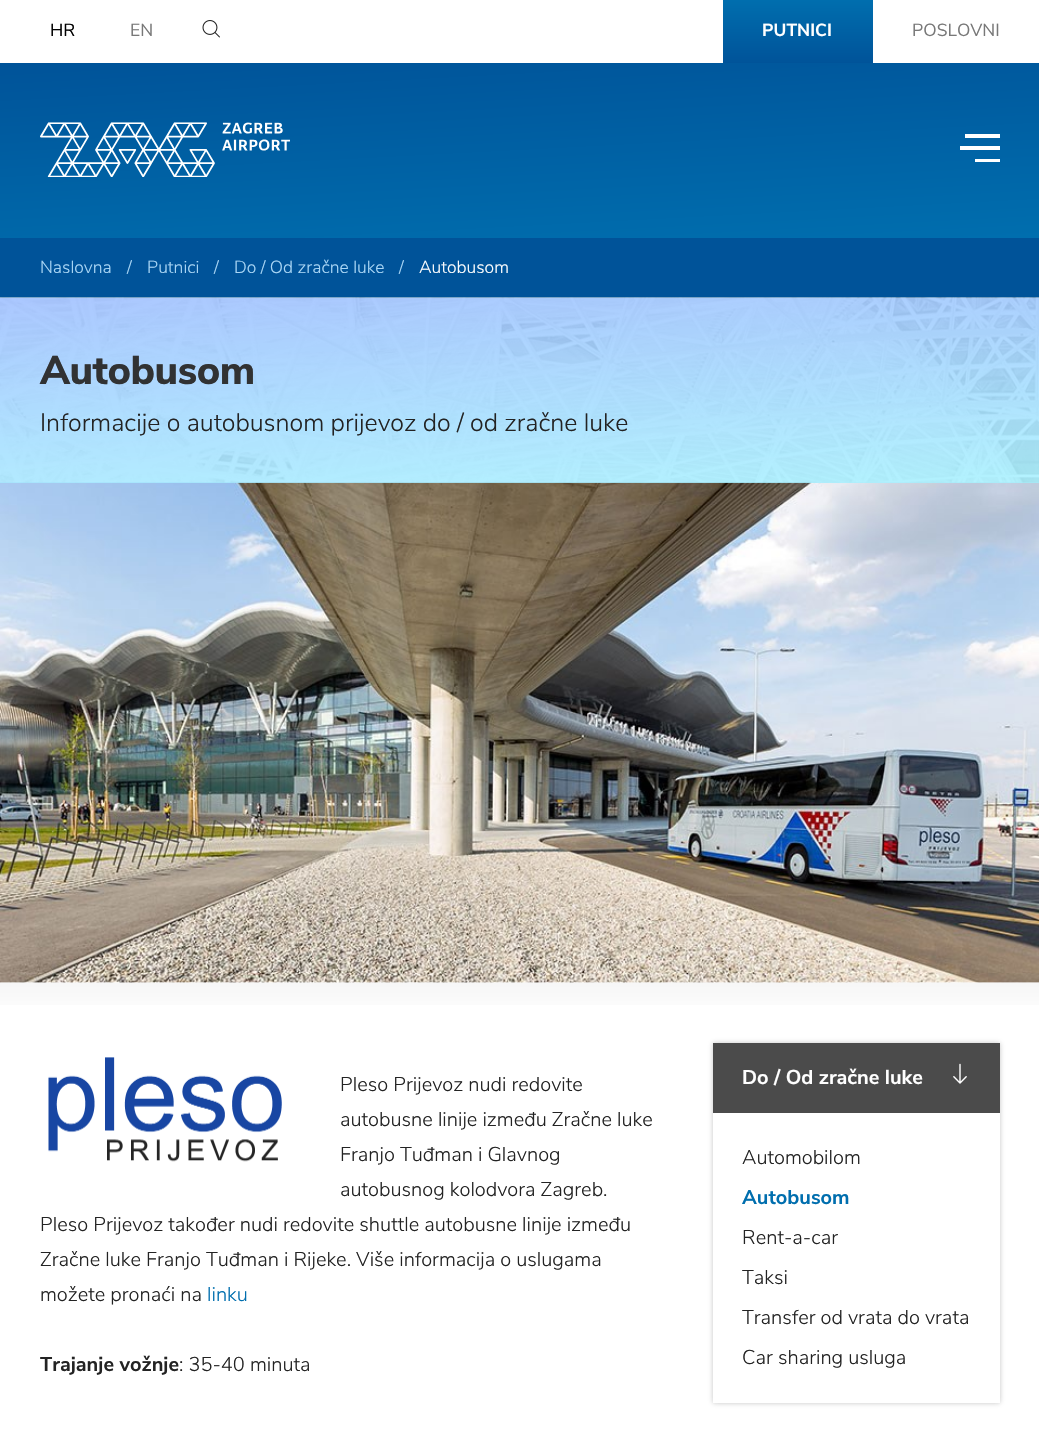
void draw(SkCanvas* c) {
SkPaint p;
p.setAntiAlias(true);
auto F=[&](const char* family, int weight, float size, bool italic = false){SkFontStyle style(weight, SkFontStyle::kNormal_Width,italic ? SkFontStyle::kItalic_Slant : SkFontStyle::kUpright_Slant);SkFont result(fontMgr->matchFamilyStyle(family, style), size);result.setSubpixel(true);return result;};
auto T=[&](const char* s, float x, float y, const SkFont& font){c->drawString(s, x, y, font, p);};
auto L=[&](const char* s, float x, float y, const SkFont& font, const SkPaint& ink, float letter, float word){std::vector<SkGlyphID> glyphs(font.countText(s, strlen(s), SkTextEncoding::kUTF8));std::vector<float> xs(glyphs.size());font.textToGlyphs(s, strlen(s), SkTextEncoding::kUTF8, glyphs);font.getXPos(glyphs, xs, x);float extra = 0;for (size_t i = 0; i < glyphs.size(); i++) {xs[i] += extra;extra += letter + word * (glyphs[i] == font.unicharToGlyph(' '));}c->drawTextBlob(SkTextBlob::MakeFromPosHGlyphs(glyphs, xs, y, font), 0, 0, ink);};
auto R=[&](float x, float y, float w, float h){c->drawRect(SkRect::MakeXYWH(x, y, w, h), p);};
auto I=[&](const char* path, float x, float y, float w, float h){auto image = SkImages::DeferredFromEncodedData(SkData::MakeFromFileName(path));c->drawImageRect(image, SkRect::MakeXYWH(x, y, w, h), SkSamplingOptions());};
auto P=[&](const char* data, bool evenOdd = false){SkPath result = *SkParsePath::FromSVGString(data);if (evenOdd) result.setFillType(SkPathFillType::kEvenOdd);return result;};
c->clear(0xffffffff);
auto f1 = F("Nunito Sans",400,17.5);
p.setColor(0xff000000);
T("HR",50,36,f1);
p.setColor(0xff787878);
T("EN",130,36,f1);
I("1.png",202,20,18,18);
{
const SkColor colors[] = {0xff006eae,0xff005399};
const float stops[] = {0,1};
const SkPoint ends[] = {{798,0}, {798,63}};
p.setShader(SkGradientShader::MakeLinear(ends, colors, stops, 2, SkTileMode::kClamp));
p.setAlpha(255);
}
R(723,0,150,63);
auto f2 = F("Nunito Sans",700,17.5);
p.setShader(nullptr);
p.setColor(0xffffffff);
T("PUTNICI",762,36,f2);
p.setColor(0xff787878);
T("POSLOVNI",912,36,f1);
{
const SkColor colors[] = {0xff005399,0xff006eae};
const float stops[] = {0,1};
const SkPoint ends[] = {{514,36}, {526,264}};
p.setShader(SkGradientShader::MakeLinear(ends, colors, stops, 2, SkTileMode::kClamp));
p.setAlpha(255);
}
R(0,63,1039,175);
I("2.png",40,122,250,55);
p.setShader(nullptr);
p.setColor(0xffffffff);
c->drawPath(P("M965 134v4h35v-4zm-5 12v4h40v-4zm15 13v3h25v-3z"),p);
p.setColor(0xff005399);
R(0,238,1039,60);
auto f3 = F("Nunito Sans",300,17.5);
p.setColor(0xffabd7f6);
T("Naslovna",40,273,f3);
T("/",127,273,f3);
T("Putnici",147,273,f3);
T("/",214,273,f3);
T("Do / Od zračne luke",234,273,f3);
T("/",399,273,f3);
p.setColor(0xffffffff);
T("Autobusom",419,273,f3);
I("4.png",0,482,1039,501);
I("3.png",0,297,1039,186);
{
const SkColor colors[] = {0x9973a2ff,0x9982ecff};
const float stops[] = {0,1};
const SkPoint ends[] = {{514,271}, {526,509}};
p.setShader(SkGradientShader::MakeLinear(ends, colors, stops, 2, SkTileMode::kClamp));
p.setAlpha(255);
}
R(0,298,1039,185);
auto f4 = F("Nunito Sans",800,40);
p.setShader(nullptr);
p.setColor(0xff313233);
L("Autobusom",40,384,f4,p,-.5,0);
auto f5 = F("Nunito Sans",300,25);
p.setColor(0xff232323);
T("Informacije o autobusnom prijevoz do / od zračne luke",40,431,f5);
I("5.png",0,982,1039,23);
I("6.png",48,1057,234,105);
auto f6 = F("Nunito Sans",300,20);
T("Pleso Prijevoz nudi redovite",340,1091,f6);
T("autobusne linije između Zračne luke",340,1126,f6);
T("Franjo Tuđman i Glavnog",340,1161,f6);
T("autobusnog kolodvora Zagreb.",340,1196,f6);
T("Pleso Prijevoz također nudi redovite shuttle autobusne linije između",40,1231,f6);
T("Zračne luke Franjo Tuđman i Rijeke. Više informacija o uslugama",40,1266,f6);
T("možete pronaći na",40,1301,f6);
p.setColor(0xff006eae);
T("linku",207,1301,f6);
auto f7 = F("Nunito Sans",700,20);
p.setColor(0xff232323);
T("Trajanje vožnje",40,1371,f7);
T(": 35-40 minuta",179,1371,f6);
p.setColor(0x666e6e6e);
p.setMaskFilter(SkMaskFilter::MakeBlur(kNormal_SkBlurStyle, 2.5));
c->drawRect(SkRect::MakeXYWH(713,1043,287,360),p);
p.setMaskFilter(nullptr);
p.setColor(0xffffffff);
R(713,1113,287,290);
p.setColor(0xff4b4b4b);
R(713,1043,287,70);
p.setColor(0xffffffff);
T("Do / Od zračne luke",742,1084,f7);
I("7.png",953,1063,14,21);
p.setColor(0xff232323);
T("Automobilom",742,1164,f6);
p.setColor(0xff006eae);
T("Autobusom",742,1204,f7);
p.setColor(0xff232323);
T("Rent-a-car",742,1244,f6);
T("Taksi",742,1284,f6);
T("Transfer od vrata do vrata",742,1324,f6);
T("Car sharing usluga",742,1364,f6);
}
